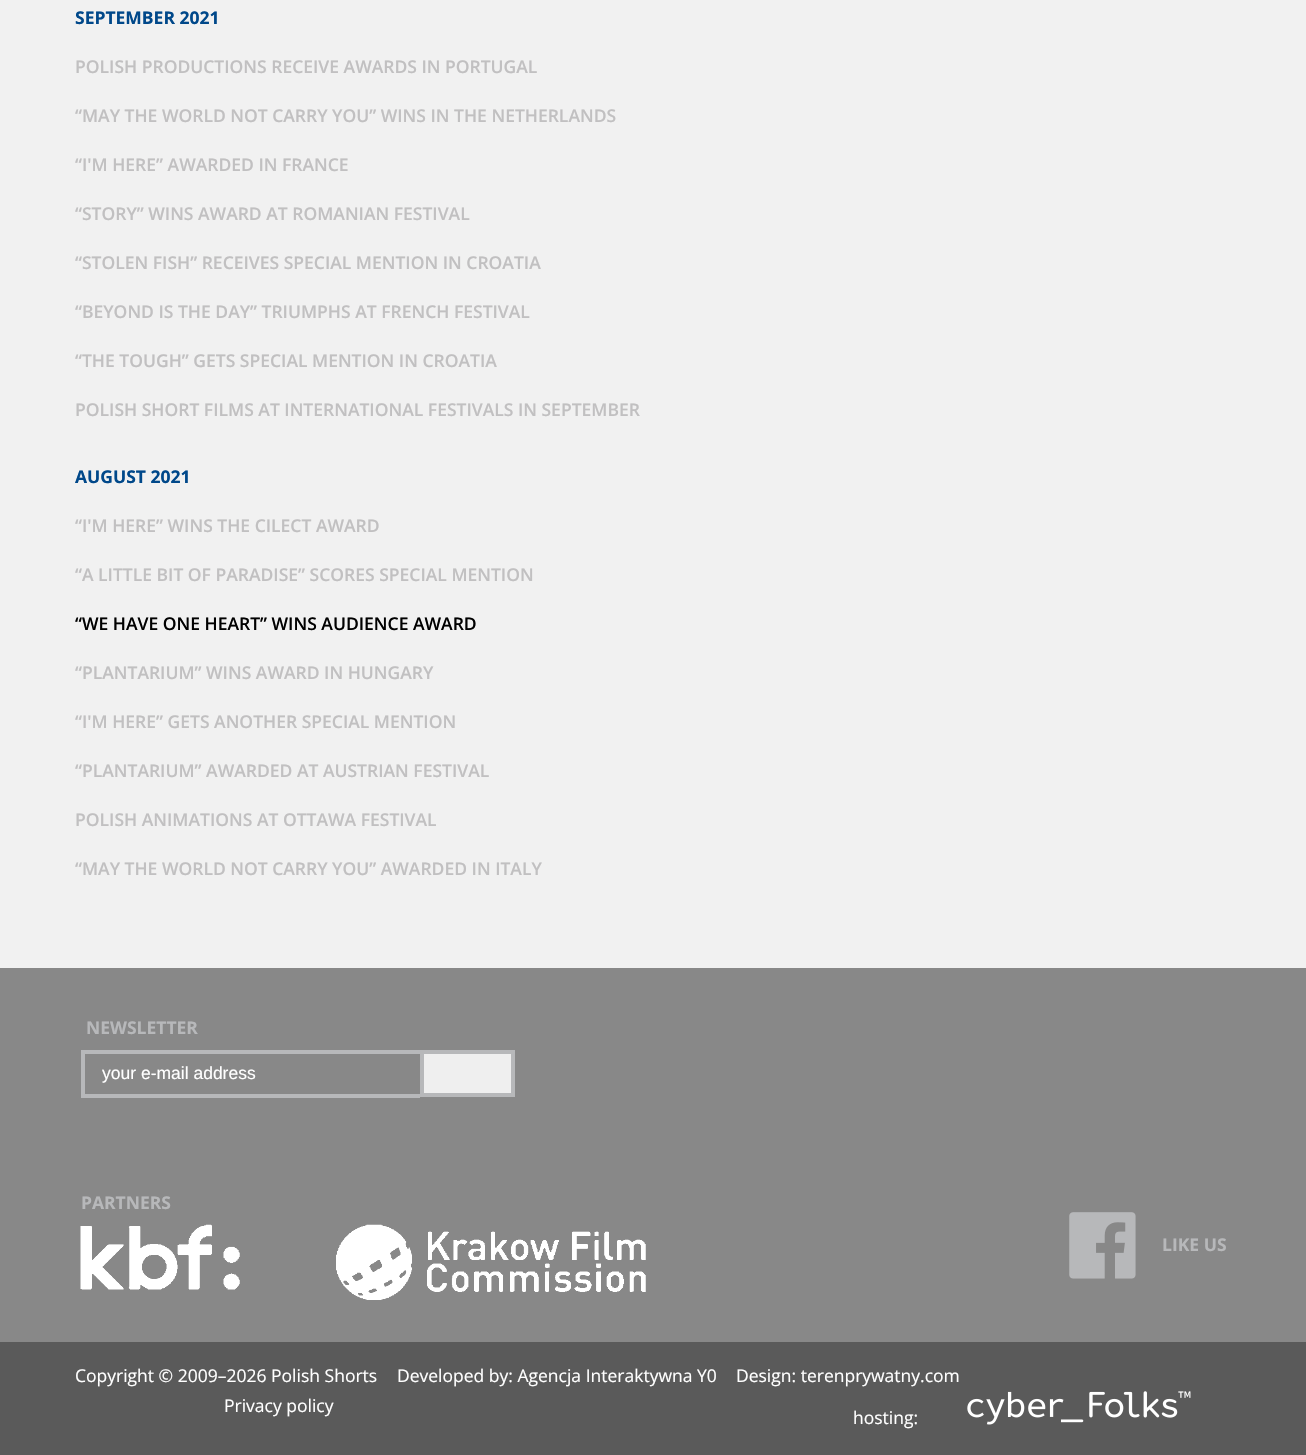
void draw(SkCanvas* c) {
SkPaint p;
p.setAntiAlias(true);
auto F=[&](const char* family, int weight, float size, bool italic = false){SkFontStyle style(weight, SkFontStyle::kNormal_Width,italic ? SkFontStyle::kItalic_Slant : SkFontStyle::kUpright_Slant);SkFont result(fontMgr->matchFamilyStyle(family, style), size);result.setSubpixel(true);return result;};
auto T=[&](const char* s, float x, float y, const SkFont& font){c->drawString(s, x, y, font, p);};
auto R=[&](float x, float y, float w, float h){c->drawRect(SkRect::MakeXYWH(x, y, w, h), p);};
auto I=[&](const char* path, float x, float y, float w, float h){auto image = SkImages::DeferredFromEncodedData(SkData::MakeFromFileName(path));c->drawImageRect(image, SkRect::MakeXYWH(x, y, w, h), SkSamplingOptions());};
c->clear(0xfff1f1f1);
auto f1 = F("Open Sans",700,17.5);
p.setColor(0xff00488a);
T("SEPTEMBER 2021",75,24,f1);
auto f2 = F("Open Sans",600,17.5);
p.setColor(0xffc1c0c1);
T("POLISH PRODUCTIONS RECEIVE AWARDS IN PORTUGAL",75,73,f2);
T("“MAY THE WORLD NOT CARRY YOU” WINS IN THE NETHERLANDS",75,122,f2);
T("“I'M HERE” AWARDED IN FRANCE",75,171,f2);
T("“STORY” WINS AWARD AT ROMANIAN FESTIVAL",75,220,f2);
T("“STOLEN FISH” RECEIVES SPECIAL MENTION IN CROATIA",75,269,f2);
T("“BEYOND IS THE DAY” TRIUMPHS AT FRENCH FESTIVAL",75,318,f2);
T("“THE TOUGH” GETS SPECIAL MENTION IN CROATIA",75,367,f2);
T("POLISH SHORT FILMS AT INTERNATIONAL FESTIVALS IN SEPTEMBER",75,416,f2);
p.setColor(0xff00488a);
T("AUGUST 2021",75,483,f1);
p.setColor(0xffc1c0c1);
T("“I'M HERE” WINS THE CILECT AWARD",75,532,f2);
T("“A LITTLE BIT OF PARADISE” SCORES SPECIAL MENTION",75,581,f2);
p.setColor(0xff000000);
T("“WE HAVE ONE HEART” WINS AUDIENCE AWARD",75,630,f2);
p.setColor(0xffc1c0c1);
T("“PLANTARIUM” WINS AWARD IN HUNGARY",75,679,f2);
T("“I'M HERE” GETS ANOTHER SPECIAL MENTION",75,728,f2);
T("“PLANTARIUM” AWARDED AT AUSTRIAN FESTIVAL",75,777,f2);
T("POLISH ANIMATIONS AT OTTAWA FESTIVAL",75,826,f2);
T("“MAY THE WORLD NOT CARRY YOU” AWARDED IN ITALY",75,875,f2);
p.setColor(0xff888888);
R(0,968,1306,374);
p.setColor(0xffb7b8ba);
T("NEWSLETTER",86,1034,f1);
R(81,1050,339,4);
R(81,1094,339,4);
R(81,1050,4,47);
auto f3 = F("Liberation Sans",400,17.5);
p.setColor(0xffffffff);
T("your e-mail address",102,1079,f3);
p.setColor(0xffefefef);
c->drawRect(SkRect::MakeXYWH(422,1052,91,43),p);
p.setStroke(true);
p.setStrokeWidth(4);
p.setColor(0xffb7b8ba);
c->drawRect(SkRect::MakeXYWH(422,1052,91,43),p);
p.setStroke(false);
T("PARTNERS",81,1209,f1);
I("1.png",80,1224,160,66);
I("2.png",336,1224,310,76);
I("3.png",1069,1212,67,67);
T("LIKE US",1162,1251,f1);
p.setColor(0xff5a5a5a);
R(0,1342,1306,113);
auto f4 = F("Open Sans",400,17.5);
p.setColor(0xffffffff);
T("Copyright © 2009–2026 Polish Shorts",75,1382,f4);
T("Developed by: Agencja Interaktywna Y0",397,1382,f4);
T("Design: terenprywatny.com",736,1382,f4);
T("Privacy policy",224,1412,f4);
T("hosting:",853,1424,f4);
I("4.png",967,1391,224,34);
}
